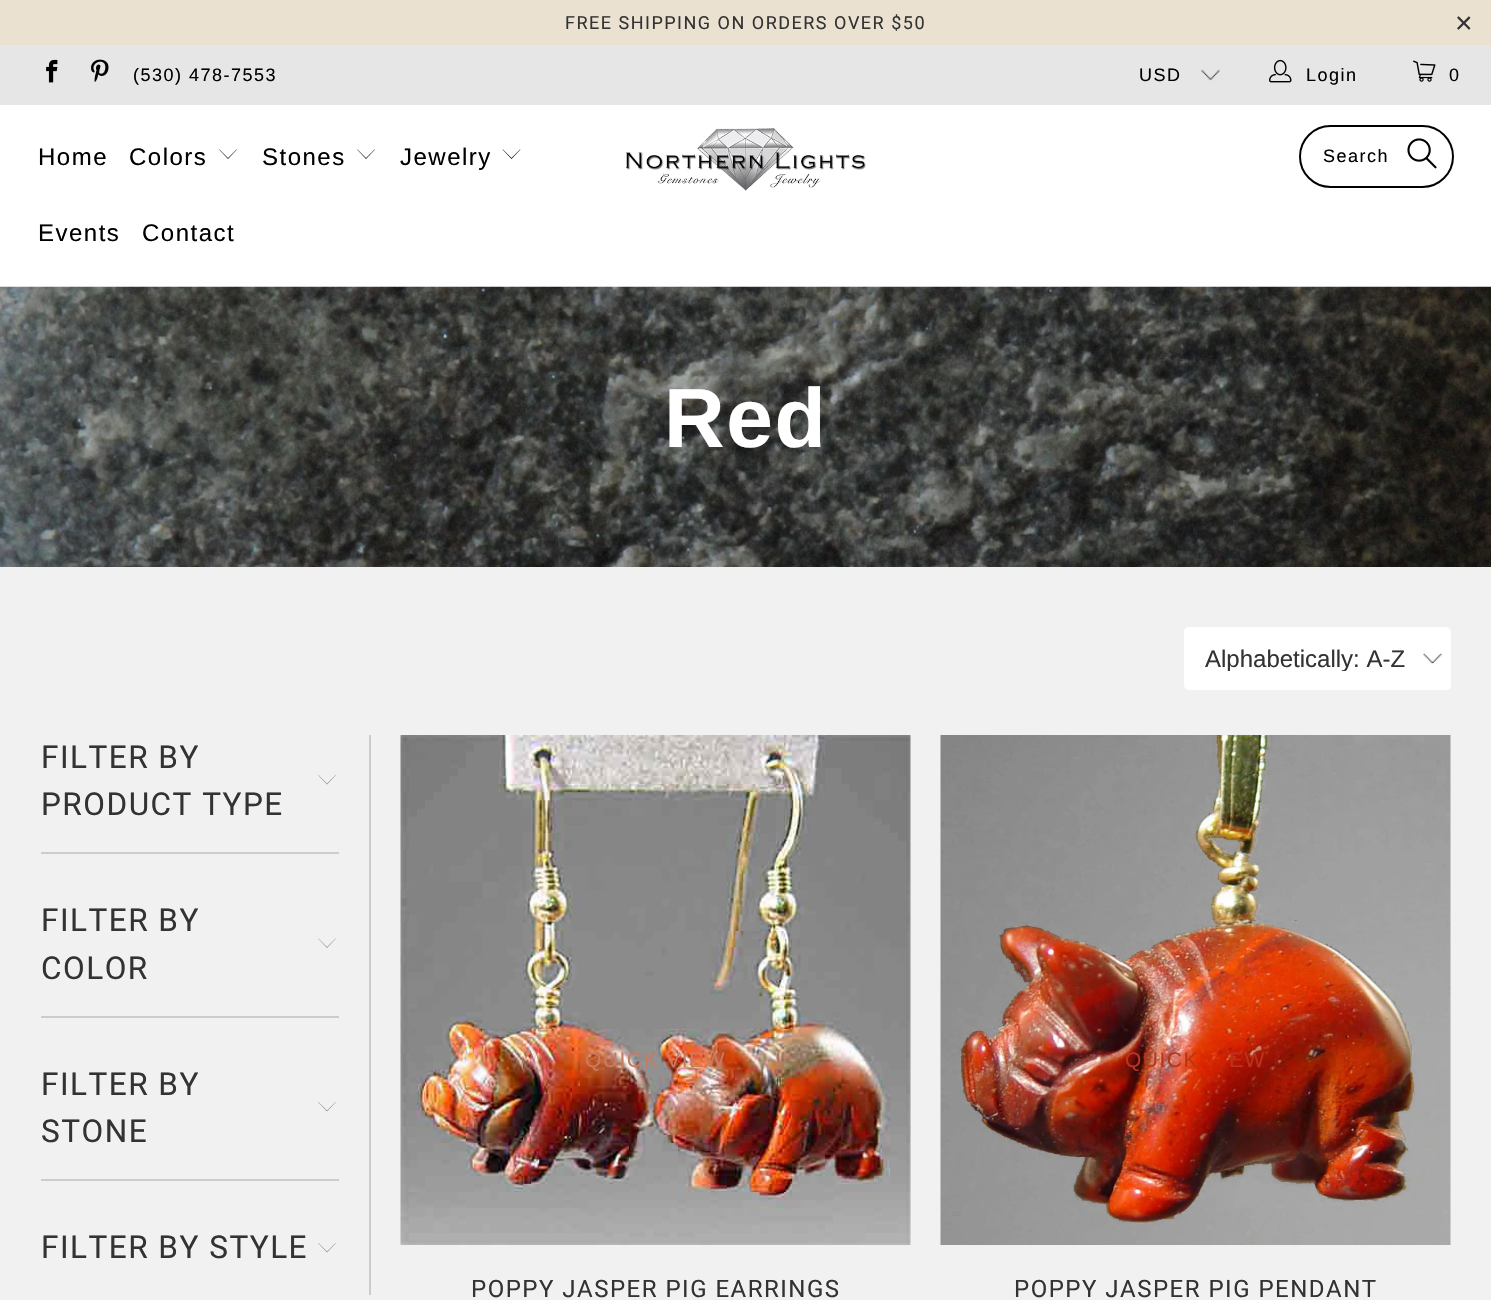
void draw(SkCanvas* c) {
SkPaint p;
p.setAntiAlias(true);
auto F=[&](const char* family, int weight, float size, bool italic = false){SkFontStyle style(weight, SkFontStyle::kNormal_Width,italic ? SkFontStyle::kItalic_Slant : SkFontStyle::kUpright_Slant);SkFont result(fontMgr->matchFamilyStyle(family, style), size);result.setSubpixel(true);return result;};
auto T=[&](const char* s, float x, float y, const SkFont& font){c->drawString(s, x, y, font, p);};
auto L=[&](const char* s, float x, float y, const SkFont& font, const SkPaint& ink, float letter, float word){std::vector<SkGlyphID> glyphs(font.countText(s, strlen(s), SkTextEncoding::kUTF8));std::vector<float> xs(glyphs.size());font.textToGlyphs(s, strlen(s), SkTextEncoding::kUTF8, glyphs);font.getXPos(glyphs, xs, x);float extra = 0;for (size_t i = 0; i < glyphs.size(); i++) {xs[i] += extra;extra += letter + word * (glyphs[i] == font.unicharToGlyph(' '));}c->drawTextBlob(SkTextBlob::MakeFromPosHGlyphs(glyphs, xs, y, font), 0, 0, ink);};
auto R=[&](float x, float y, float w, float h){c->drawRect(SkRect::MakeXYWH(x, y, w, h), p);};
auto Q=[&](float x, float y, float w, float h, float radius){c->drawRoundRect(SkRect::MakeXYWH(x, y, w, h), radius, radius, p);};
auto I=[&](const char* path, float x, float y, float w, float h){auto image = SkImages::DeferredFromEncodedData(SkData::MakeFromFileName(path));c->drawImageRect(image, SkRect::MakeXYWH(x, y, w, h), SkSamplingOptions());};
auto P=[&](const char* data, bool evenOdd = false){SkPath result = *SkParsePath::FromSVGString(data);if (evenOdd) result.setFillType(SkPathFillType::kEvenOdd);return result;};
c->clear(0xfff1f1f1);
p.setColor(0xffeae1d1);
R(0,0,1491,45);
auto f1 = F("Roboto",400,18);
p.setColor(0xff333333);
L("FREE SHIPPING ON ORDERS OVER $50",565,29,f1,p,1.5,0);
auto f2 = F("Liberation Sans",400,30);
L("×",1455,33,f2,p,1.5,0);
p.setColor(0xffe6e6e6);
R(0,45,1491,60);
I("1.png",46,59,12,24);
I("2.png",91,59,18,23);
auto f3 = F("Liberation Sans",400,18);
p.setColor(0xff000000);
L("(530) 478-7553",133,81,f3,p,1.5,0);
I("3.png",1201,69,19,12);
L("USD",1139,81,f3,p,1.5,0);
I("4.png",1269,59,23,24);
L("Login",1306,81,f3,p,1.5,0);
I("5.png",1413,60,23,22);
L("0",1449,81,f3,p,1.5,0);
p.setColor(0xffffffff);
R(0,105,1491,182);
auto f4 = F("Liberation Sans",400,24);
p.setColor(0xff000000);
L("Home",38,165,f4,p,1.5,0);
L("Colors",129,165,f4,p,1.5,0);
c->drawPath(P("M228 159l-9-9.5h.5l8.5 8.5l8.5-8.5h.5z"),p);
L("Stones",262,165,f4,p,1.5,0);
c->drawPath(P("M366 159l-9-9.5h.5l8.5 8.5l8.5-8.5h.5z"),p);
L("Jewelry",400,165,f4,p,1.5,0);
c->drawPath(P("M511.5 159l-9-9.5h.5l8.5 8.5l8.5-8.5h.5z"),p);
L("Events",38,241,f4,p,1.5,0);
L("Contact",142,241,f4,p,1.5,0);
I("6.png",625,128,241,63);
p.setStroke(true);
p.setStrokeWidth(2);
c->drawRoundRect(SkRect::MakeXYWH(1300,126,153,61),30.5,30.5,p);
p.setStroke(false);
L("Search",1323,162,f3,p,1.5,0);
I("7.png",1407,138,30,31);
I("8.png",0,286,1491,281);
auto f5 = F("Liberation Sans",700,84);
p.setColor(0xffffffff);
L("Red",664,447,f5,p,1.5,0);
Q(1184,627,267,63,5);
I("9.png",1423,653,19,11);
c->save();
c->clipRect(SkRect::MakeXYWH(1205,645,201,26));
p.setColor(0xff333333);
T("Alphabetically: A-Z",1205,667,f4);
c->restore();
p.setColor(0xffcccccc);
R(369,735,2,560);
R(41,852,298,2);
auto f6 = F("Roboto",400,31.5);
p.setColor(0xff333333);
L("FILTER BY",41,768,f6,p,1.5,0);
p.setColor(0xff8c8b8b);
c->drawPath(P("M327 784.5l-9-9.5h.5l8.5 8.5l8.5-8.5h.5z"),p);
p.setColor(0xff333333);
L("PRODUCT TYPE",41,815,f6,p,1.5,0);
p.setColor(0xffcccccc);
R(41,1016,298,2);
p.setColor(0xff333333);
L("FILTER BY",41,931,f6,p,1.5,0);
p.setColor(0xff8c8b8b);
c->drawPath(P("M327 948l-9-9.5h.5l8.5 8.5l8.5-8.5h.5z"),p);
p.setColor(0xff333333);
L("COLOR",41,979,f6,p,1.5,0);
p.setColor(0xffcccccc);
R(41,1179,298,2);
p.setColor(0xff333333);
L("FILTER BY",41,1095,f6,p,1.5,0);
p.setColor(0xff8c8b8b);
c->drawPath(P("M327 1111.5l-9-9.5h.5l8.5 8.5l8.5-8.5h.5z"),p);
p.setColor(0xff333333);
L("STONE",41,1142,f6,p,1.5,0);
L("FILTER BY STYLE",41,1258,f6,p,1.5,0);
p.setColor(0xff8c8b8b);
c->drawPath(P("M327 1252.5l-9-9.5h.5l8.5 8.5l8.5-8.5h.5z"),p);
I("10.png",400,735,511,510);
auto f7 = F("Liberation Sans",400,21);
p.setColor(0xffc77c60);
L("QUICK VIEW",585,1067,f7,p,1.5,0);
auto f8 = F("Roboto",400,24);
p.setColor(0xff333333);
L("POPPY JASPER PIG EARRINGS",471,1297,f8,p,1.5,0);
I("11.png",940,735,511,510);
p.setColor(0xffb6351e);
L("QUICK",1125,1067,f7,p,1.5,0);
L("EW",1229,1067,f7,p,1.5,0);
p.setColor(0xff333333);
L("POPPY JASPER PIG PENDANT",1014,1297,f8,p,1.5,0);
}
